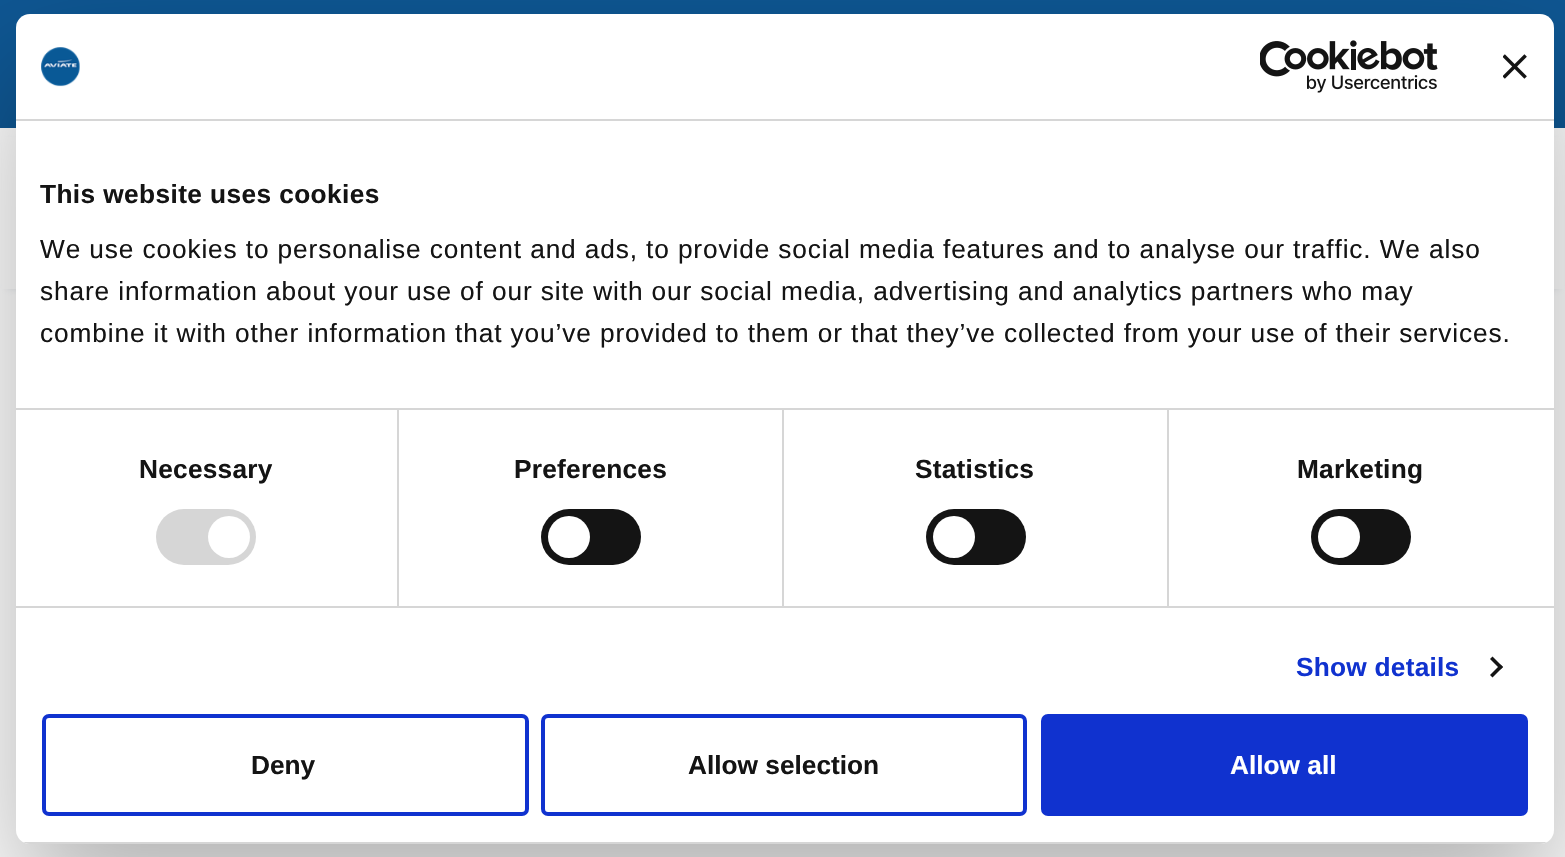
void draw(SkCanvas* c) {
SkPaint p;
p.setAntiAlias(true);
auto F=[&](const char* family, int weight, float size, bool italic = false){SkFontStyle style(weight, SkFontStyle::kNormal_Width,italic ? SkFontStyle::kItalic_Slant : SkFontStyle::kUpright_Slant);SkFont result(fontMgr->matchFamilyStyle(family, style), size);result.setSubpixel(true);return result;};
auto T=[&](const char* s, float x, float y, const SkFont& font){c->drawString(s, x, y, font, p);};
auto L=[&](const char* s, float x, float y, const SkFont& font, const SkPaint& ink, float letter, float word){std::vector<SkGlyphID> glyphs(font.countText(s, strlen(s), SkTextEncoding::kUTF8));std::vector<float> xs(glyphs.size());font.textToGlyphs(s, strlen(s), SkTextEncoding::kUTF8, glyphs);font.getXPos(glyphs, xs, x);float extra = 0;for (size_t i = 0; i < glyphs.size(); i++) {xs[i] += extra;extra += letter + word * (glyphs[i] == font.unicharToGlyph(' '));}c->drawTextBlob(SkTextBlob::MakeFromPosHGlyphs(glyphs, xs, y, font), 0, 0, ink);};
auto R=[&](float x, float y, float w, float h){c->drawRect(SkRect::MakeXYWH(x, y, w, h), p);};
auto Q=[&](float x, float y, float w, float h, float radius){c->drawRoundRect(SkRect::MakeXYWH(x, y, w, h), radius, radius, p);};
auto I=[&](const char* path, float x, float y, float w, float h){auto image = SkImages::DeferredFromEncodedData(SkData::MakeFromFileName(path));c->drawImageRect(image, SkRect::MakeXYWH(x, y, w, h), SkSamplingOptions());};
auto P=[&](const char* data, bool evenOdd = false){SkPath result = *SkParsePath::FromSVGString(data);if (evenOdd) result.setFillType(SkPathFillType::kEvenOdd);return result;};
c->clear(0xffffffff);
p.setColor(0xff0e5692);
R(0,0,1565,128);
p.setColor(0x408e9dab);
p.setMaskFilter(SkMaskFilter::MakeBlur(kNormal_SkBlurStyle, 3.5));
c->drawRect(SkRect::MakeXYWH(7,142,1552,147),p);
p.setMaskFilter(nullptr);
p.setColor(0xffffffff);
R(2,137,1562,152);
p.setColor(0x4d000000);
p.setMaskFilter(SkMaskFilter::MakeBlur(kNormal_SkBlurStyle, 59.5));
c->drawRoundRect(SkRect::MakeXYWH(16,70,1538,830),14,14,p);
p.setMaskFilter(nullptr);
p.setColor(0xffffffff);
Q(16,14,1538,830,14);
p.setColor(0xffd6d6d6);
R(16,119,1538,2);
I("1.png",41,47,39,40);
I("2.png",1260,40,178,53);
I("3.png",1503,54,24,25);
R(16,408,1538,2);
auto f1 = F("Liberation Sans",700,26.25);
p.setColor(0xff141414);
L("This website uses cookies",40,203,f1,p,.4,0);
auto f2 = F("Liberation Sans",400,26.25);
L("We use cookies to personalise content and ads, to provide social media features and to analyse our traffic. We also",40,258,f2,p,.88,0);
L("share information about your use of our site with our social media, advertising and analytics partners who may",40,300,f2,p,.88,0);
L("combine it with other information that you’ve provided to them or that they’ve collected from your use of their services.",40,342,f2,p,.88,0);
p.setColor(0xffd6d6d6);
R(16,606,1538,2);
R(397,410,2,196);
p.setColor(0xff141414);
L("Necessary",139,478,f1,p,.25,0);
p.setColor(0xffd6d6d6);
Q(156,509,100,56,28);
p.setColor(0xffffffff);
c->drawCircle(229,537,21,p);
p.setColor(0xffd6d6d6);
R(782,410,2,196);
p.setColor(0xff141414);
L("Preferences",514,478,f1,p,.25,0);
Q(541,509,100,56,28);
p.setColor(0xffffffff);
c->drawCircle(569,537,21,p);
p.setColor(0xffd6d6d6);
R(1167,410,2,196);
p.setColor(0xff141414);
L("Statistics",915,478,f1,p,.25,0);
Q(926,509,100,56,28);
p.setColor(0xffffffff);
c->drawCircle(954,537,21,p);
p.setColor(0xff141414);
L("Marketing",1297,478,f1,p,.25,0);
Q(1311,509,100,56,28);
p.setColor(0xffffffff);
c->drawCircle(1339,537,21,p);
p.setColor(0xff1032cf);
L("Show details",1296,676,f1,p,.25,0);
p.setColor(0xff141414);
c->drawPath(P("M1492.5 656.5l10.5 10.5l-2.5 2.5l-10.5-10.5z"),p);
c->drawPath(P("M1500.5 664.5l2.5 2.5l-10.5 10.5l-2.5-2.5z"),p);
c->save();
c->clipPath(P("M30 14h1510c7.5 0 14 6.5 14 14v802c0 7.5-6.5 14-14 14h-1510c-7.5 0-14-6.5-14-14v-802c0-7.5 6.5-14 14-14z"),true);
p.setColor(0xffd6d6d6);
R(16,842,1538,2);
c->restore();
p.setStroke(true);
p.setStrokeWidth(4);
p.setColor(0xff1032cf);
c->drawRoundRect(SkRect::MakeXYWH(44,716,483,98),5,5,p);
p.setStroke(false);
p.setColor(0xff141414);
T("Deny",251,774,f1);
p.setStroke(true);
p.setColor(0xff1032cf);
c->drawRoundRect(SkRect::MakeXYWH(543,716,482,98),5,5,p);
p.setStroke(false);
p.setColor(0xff141414);
T("Allow selection",688,774,f1);
p.setColor(0xff1032cf);
c->drawRoundRect(SkRect::MakeXYWH(1043,716,483,98),5,5,p);
p.setStroke(true);
c->drawRoundRect(SkRect::MakeXYWH(1043,716,483,98),5,5,p);
p.setStroke(false);
p.setColor(0xffffffff);
T("Allow all",1230,774,f1);
}
